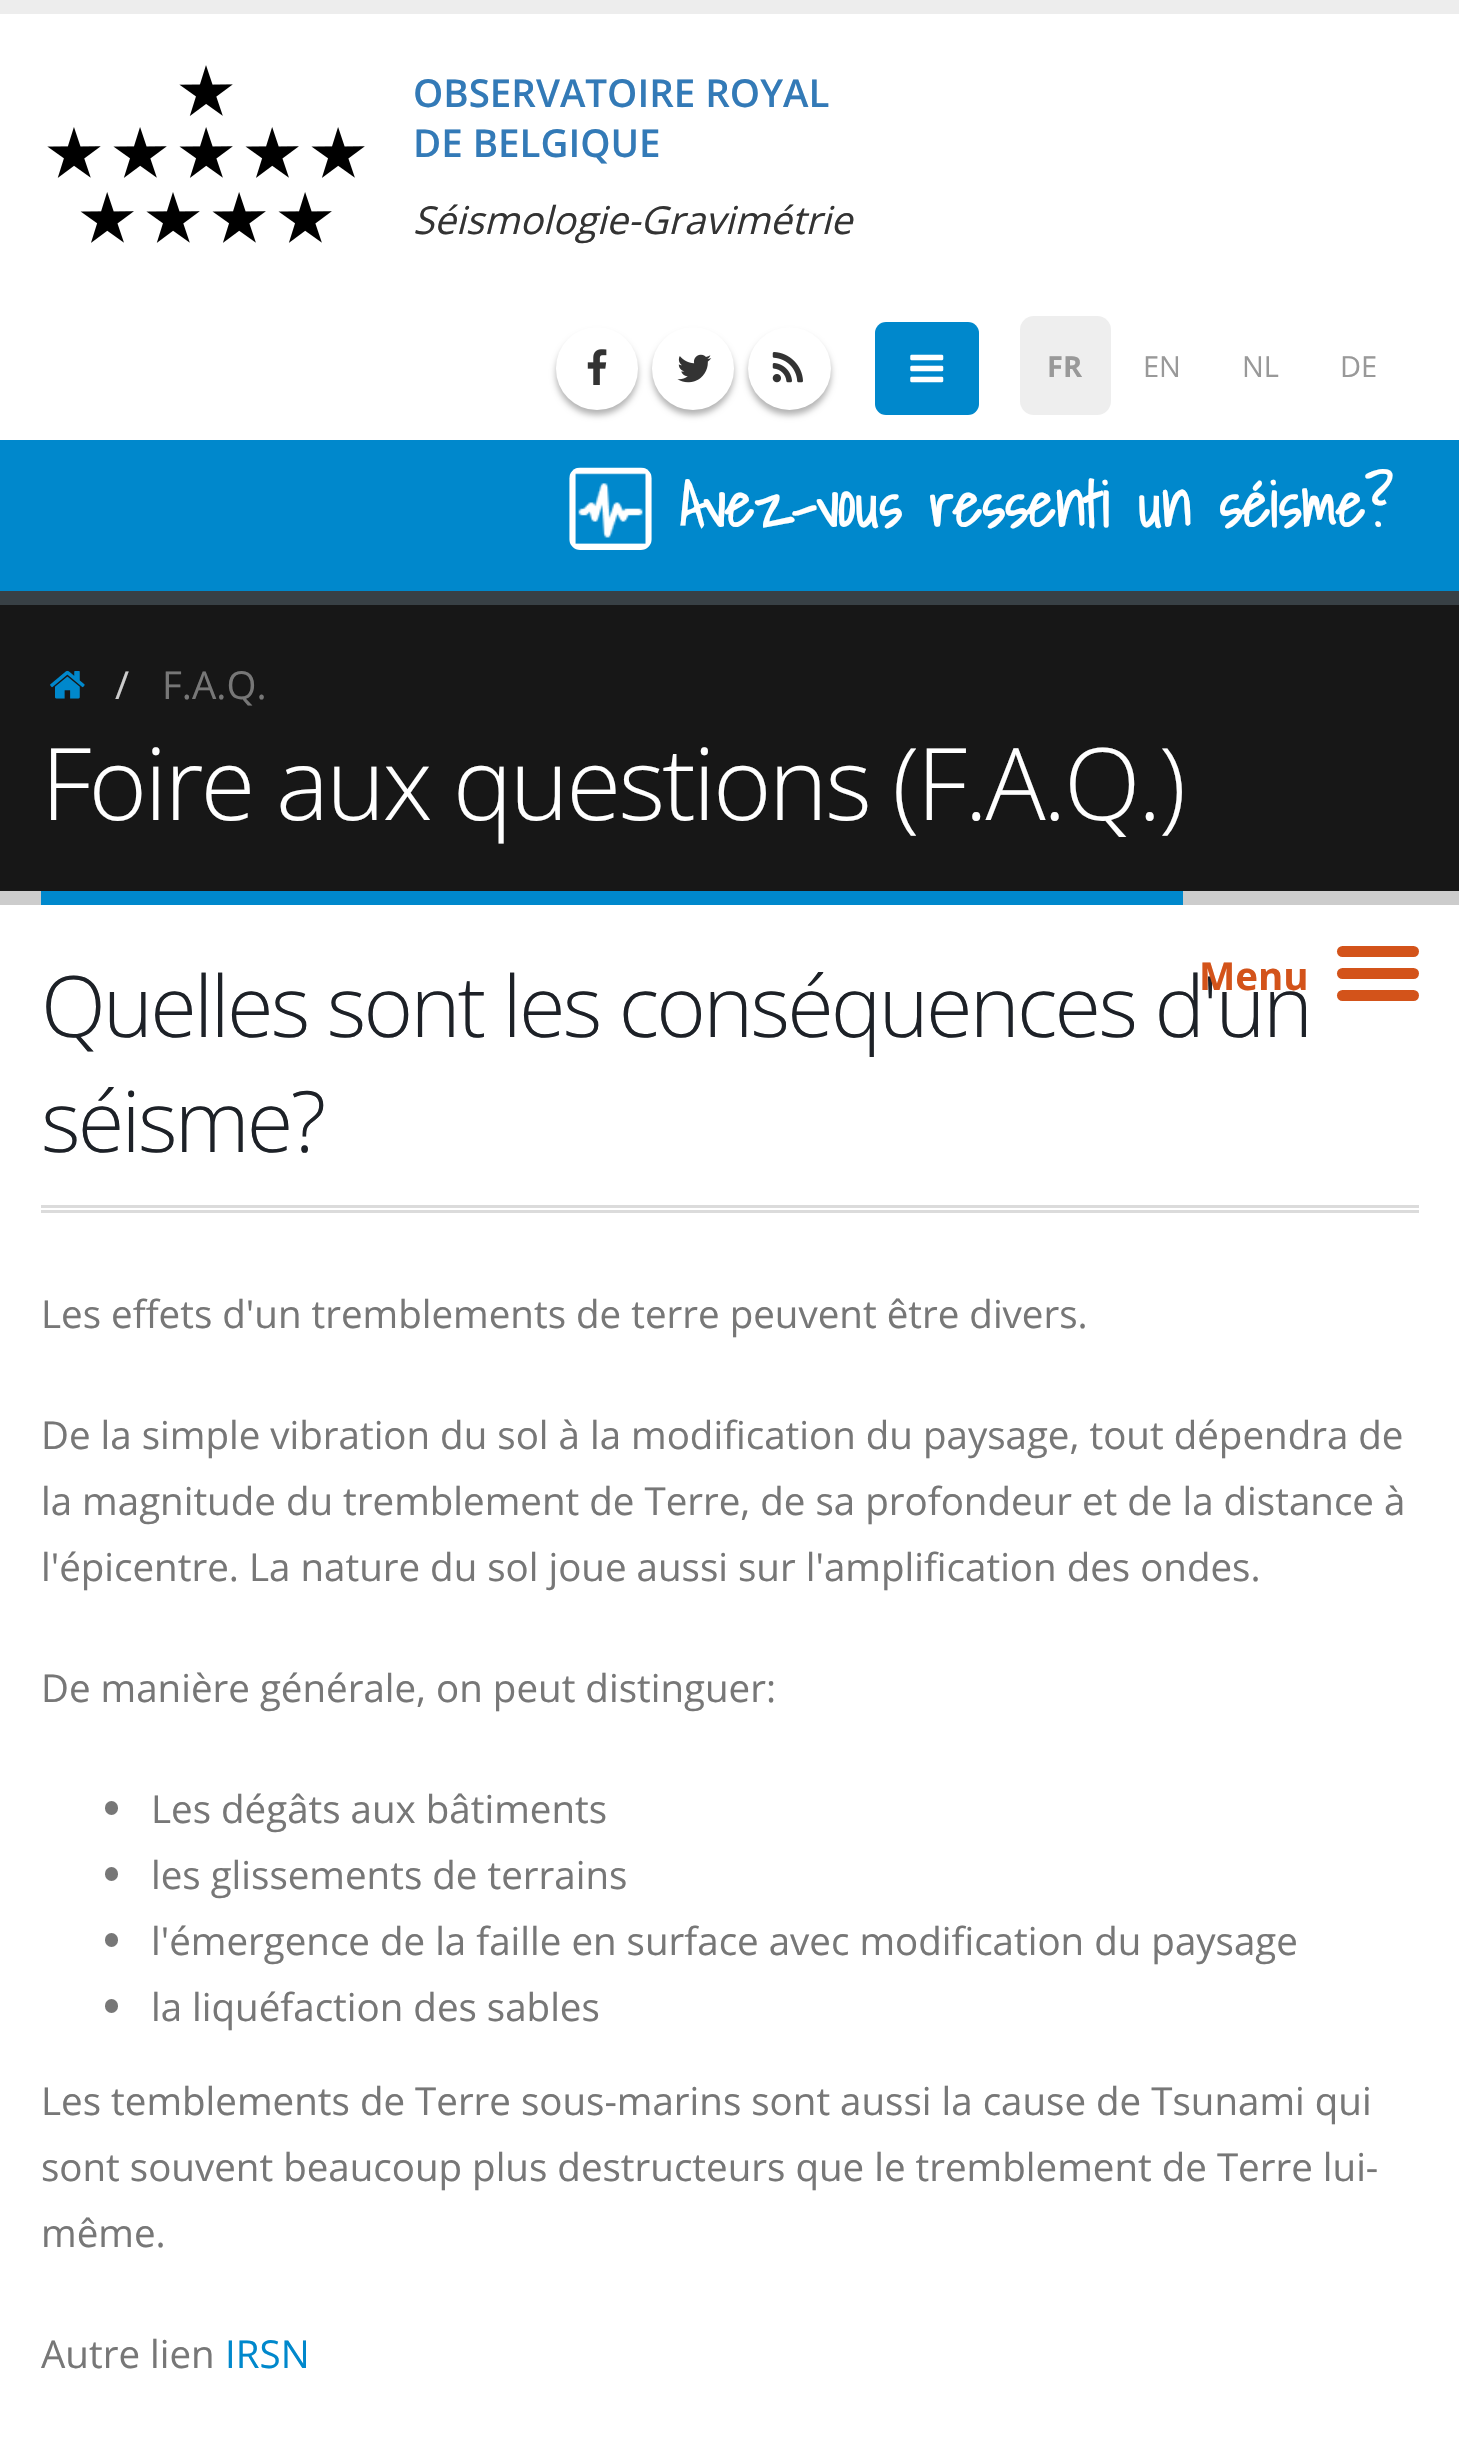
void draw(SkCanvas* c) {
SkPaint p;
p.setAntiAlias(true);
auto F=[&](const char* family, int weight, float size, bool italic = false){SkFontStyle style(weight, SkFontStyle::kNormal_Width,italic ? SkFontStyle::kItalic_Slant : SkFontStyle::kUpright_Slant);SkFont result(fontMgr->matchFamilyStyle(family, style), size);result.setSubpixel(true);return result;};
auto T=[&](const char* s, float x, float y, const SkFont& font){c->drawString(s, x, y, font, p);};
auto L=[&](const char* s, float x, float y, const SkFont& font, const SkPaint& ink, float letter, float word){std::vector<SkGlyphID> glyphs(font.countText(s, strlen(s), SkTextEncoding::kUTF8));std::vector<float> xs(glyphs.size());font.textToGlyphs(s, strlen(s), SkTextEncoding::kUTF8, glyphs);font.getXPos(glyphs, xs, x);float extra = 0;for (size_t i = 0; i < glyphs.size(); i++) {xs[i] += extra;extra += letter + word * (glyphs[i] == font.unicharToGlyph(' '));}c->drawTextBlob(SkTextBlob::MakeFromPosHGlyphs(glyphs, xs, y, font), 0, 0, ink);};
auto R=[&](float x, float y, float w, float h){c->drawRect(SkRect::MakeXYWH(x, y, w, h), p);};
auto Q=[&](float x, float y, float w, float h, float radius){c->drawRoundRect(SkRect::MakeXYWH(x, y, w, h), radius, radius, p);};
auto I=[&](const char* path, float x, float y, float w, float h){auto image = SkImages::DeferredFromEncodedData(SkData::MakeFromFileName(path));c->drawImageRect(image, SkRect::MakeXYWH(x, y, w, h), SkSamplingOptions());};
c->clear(0xffffffff);
p.setColor(0xffededed);
R(0,0,1459,14);
I("1.png",47,65,318,178);
auto f1 = F("Open Sans",600,38.5);
p.setColor(0xff337ab7);
T("OBSERVATOIRE ROYAL",413,107,f1);
T("DE BELGIQUE",413,157,f1);
auto f2 = F("Open Sans",400,38.5,true);
p.setColor(0xff333333);
T("Séismologie-Gravimétrie",413,234,f2);
p.setColor(0x4d000000);
p.setMaskFilter(SkMaskFilter::MakeBlur(kNormal_SkBlurStyle, 3));
c->drawRoundRect(SkRect::MakeXYWH(556,333,82,82),41,41,p);
p.setMaskFilter(nullptr);
p.setColor(0xffffffff);
Q(556,327,82,83,41);
I("2.png",587,349,20,36);
p.setColor(0x4d000000);
p.setMaskFilter(SkMaskFilter::MakeBlur(kNormal_SkBlurStyle, 3));
c->drawRoundRect(SkRect::MakeXYWH(652,333,82,82),41,41,p);
p.setMaskFilter(nullptr);
p.setColor(0xffffffff);
Q(652,327,82,83,41);
I("3.png",677,354,35,29);
p.setColor(0x4d000000);
p.setMaskFilter(SkMaskFilter::MakeBlur(kNormal_SkBlurStyle, 3));
c->drawRoundRect(SkRect::MakeXYWH(748,333,83,82),41,41,p);
p.setMaskFilter(nullptr);
p.setColor(0xffffffff);
c->drawCircle(789.5,368.5,41.5,p);
I("4.png",772,352,31,31);
p.setColor(0xff0088cc);
Q(875,322,104,93,11);
I("5.png",910,354,34,29);
p.setColor(0xffeeeeee);
Q(1020,316,91,99,14);
auto f3 = F("Open Sans",700,29);
p.setColor(0xff999999);
T("FR",1047,377,f3);
auto f4 = F("Open Sans",400,29);
T("EN",1143,377,f4);
T("NL",1242,377,f4);
T("DE",1340,377,f4);
p.setColor(0xff0088cc);
R(0,440,1459,151);
I("6.png",569,467,83,83);
auto f5 = F("Shadows Into Light",700,61.6);
p.setColor(0xffffffff);
T("Avez-vous ressenti un séisme?",679,527,f5);
p.setColor(0xff171717);
R(0,605,1459,286);
p.setColor(0xff384045);
R(0,591,1459,14);
p.setColor(0xffcccccc);
R(0,891,1459,14);
I("7.png",50,670,35,29);
auto f6 = F("Open Sans",400,38.5);
T("/",115,699,f6);
p.setColor(0xff777777);
T("F.A.Q.",162,699,f6);
p.setColor(0xff0088cc);
R(41,891,1142,14);
auto f7 = F("Open Sans",300,100.1);
p.setColor(0xffffffff);
L("Foire aux questions (F.A.Q.)",41,820,f7,p,-2.75,0);
p.setColor(0xffd3531a);
Q(1337,946,82,11,5.5);
auto f8 = F("Open Sans",300,84.75);
p.setColor(0xff1d2127);
L("Quelles sont les conséquences d'un",41,1037,f8,p,-2.75,0);
auto f9 = F("Open Sans",700,38.5);
p.setColor(0xffd3531a);
T("Menu",1199,990,f9);
Q(1337,968,82,11,5.5);
Q(1337,990,82,11,5.5);
p.setColor(0xffdbdbdb);
R(41,1205,1378,3);
R(41,1210,1378,3);
p.setColor(0xff1d2127);
L("séisme?",41,1152,f8,p,-2.75,0);
p.setColor(0xff777777);
T("Les effets d'un tremblements de terre peuvent être divers.",41,1328,f6);
T("De la simple vibration du sol à la modification du paysage, tout dépendra de",41,1449,f6);
T("la magnitude du tremblement de Terre, de sa profondeur et de la distance à",41,1515,f6);
T("l'épicentre. La nature du sol joue aussi sur l'amplification des ondes.",41,1581,f6);
T("De manière générale, on peut distinguer:",41,1702,f6);
Q(105,1801,13,14,6.5);
T("Les dégâts aux bâtiments",151,1823,f6);
Q(105,1867,13,14,6.5);
T("les glissements de terrains",151,1889,f6);
Q(105,1933,13,14,6.5);
T("l'émergence de la faille en surface avec modification du paysage",151,1955,f6);
Q(105,1999,13,14,6.5);
T("la liquéfaction des sables",151,2021,f6);
T("Les temblements de Terre sous-marins sont aussi la cause de Tsunami qui",41,2115,f6);
T("sont souvent beaucoup plus destructeurs que le tremblement de Terre lui-",41,2181,f6);
T("même.",41,2247,f6);
T("Autre lien",41,2368,f6);
p.setColor(0xff0088cc);
T("IRSN",225,2368,f6);
}
